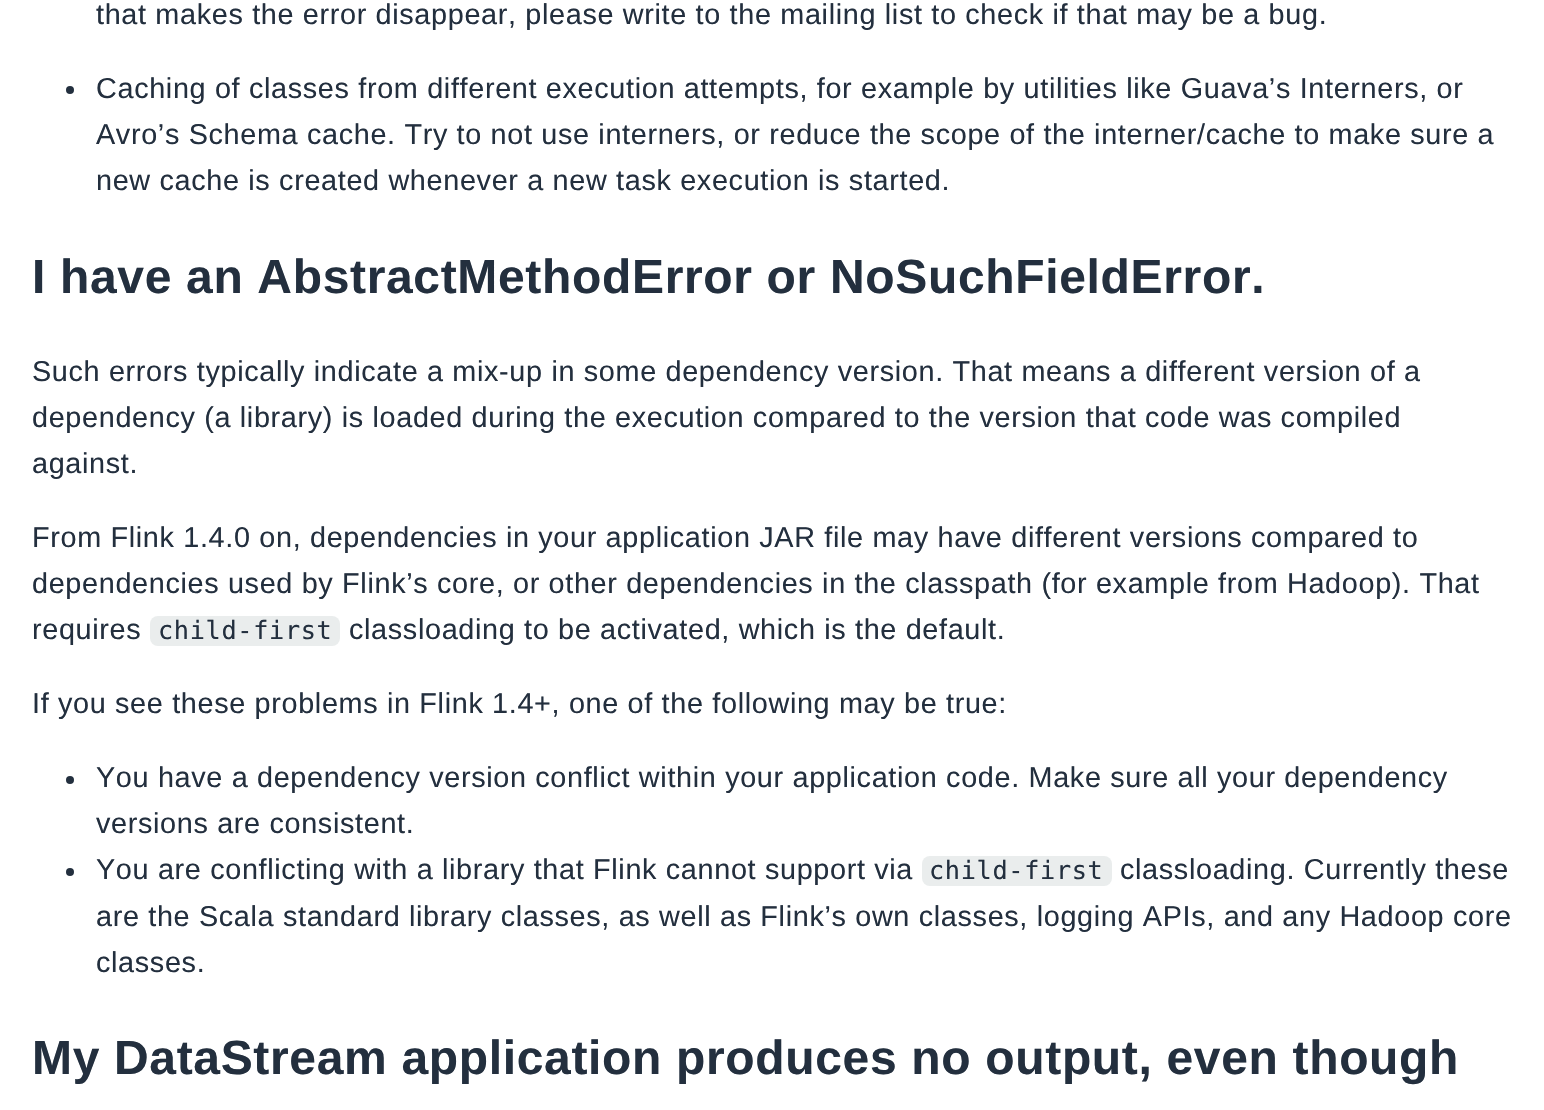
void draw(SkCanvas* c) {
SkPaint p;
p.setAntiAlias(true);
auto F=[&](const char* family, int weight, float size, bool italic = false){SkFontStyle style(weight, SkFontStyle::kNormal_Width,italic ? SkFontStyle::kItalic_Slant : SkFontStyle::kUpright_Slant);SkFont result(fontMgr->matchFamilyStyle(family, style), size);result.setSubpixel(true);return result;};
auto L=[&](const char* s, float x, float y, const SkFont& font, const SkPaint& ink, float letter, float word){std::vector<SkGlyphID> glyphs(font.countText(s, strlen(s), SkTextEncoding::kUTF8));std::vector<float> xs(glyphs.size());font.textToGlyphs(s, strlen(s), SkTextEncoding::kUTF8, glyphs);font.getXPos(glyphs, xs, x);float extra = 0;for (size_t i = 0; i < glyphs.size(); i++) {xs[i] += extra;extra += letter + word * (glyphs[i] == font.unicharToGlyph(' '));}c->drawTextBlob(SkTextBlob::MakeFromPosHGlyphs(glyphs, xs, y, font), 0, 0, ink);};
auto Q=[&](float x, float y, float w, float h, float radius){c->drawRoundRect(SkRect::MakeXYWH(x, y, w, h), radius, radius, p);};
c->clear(0xffffffff);
auto f1 = F("Liberation Sans",400,28.8);
p.setColor(0xff232f3e);
L("that makes the error disappear, please write to the mailing list to check if that may be a bug.",96,24,f1,p,.66,0);
c->drawCircle(70,90,4,p);
L("Caching of classes from different execution attempts, for example by utilities like Guava’s Interners, or",96,98,f1,p,.66,0);
L("Avro’s Schema cache. Try to not use interners, or reduce the scope of the interner/cache to make sure a",96,144,f1,p,.66,0);
L("new cache is created whenever a new task execution is started.",96,190,f1,p,.66,0);
auto f2 = F("Liberation Sans",700,48);
L("I have an AbstractMethodError or NoSuchFieldError.",32,293,f2,p,.66,0);
L("Such errors typically indicate a mix-up in some dependency version. That means a different version of a",32,381,f1,p,.66,0);
L("dependency (a library) is loaded during the execution compared to the version that code was compiled",32,427,f1,p,.66,0);
L("against.",32,473,f1,p,.66,0);
L("From Flink 1.4.0 on, dependencies in your application JAR file may have different versions compared to",32,547,f1,p,.66,0);
L("dependencies used by Flink’s core, or other dependencies in the classpath (for example from Hadoop). That",32,593,f1,p,.66,0);
L("requires",32,639,f1,p,.66,0);
p.setColor(0xffeaeded);
Q(150,616,190,30,8);
auto f3 = F("DejaVu Sans Mono",400,25.25);
p.setColor(0xff232f3e);
L("child-first",158,639,f3,p,.66,0);
L("classloading to be activated, which is the default.",349,639,f1,p,.66,0);
L("If you see these problems in Flink 1.4+, one of the following may be true:",32,713,f1,p,.66,0);
c->drawCircle(70,780,4,p);
L("You have a dependency version conflict within your application code. Make sure all your dependency",96,787,f1,p,.66,0);
L("versions are consistent.",96,833,f1,p,.66,0);
c->drawCircle(70,872,4,p);
L("You are conflicting with a library that Flink cannot support via",96,879,f1,p,.66,0);
p.setColor(0xffeaeded);
Q(922,856,190,30,8);
p.setColor(0xff232f3e);
L("child-first",929,879,f3,p,.66,0);
L("classloading. Currently these",1120,879,f1,p,.66,0);
L("are the Scala standard library classes, as well as Flink’s own classes, logging APIs, and any Hadoop core",96,926,f1,p,.66,0);
L("classes.",96,972,f1,p,.66,0);
L("My DataStream application produces no output, even though",32,1074,f2,p,.66,0);
}
